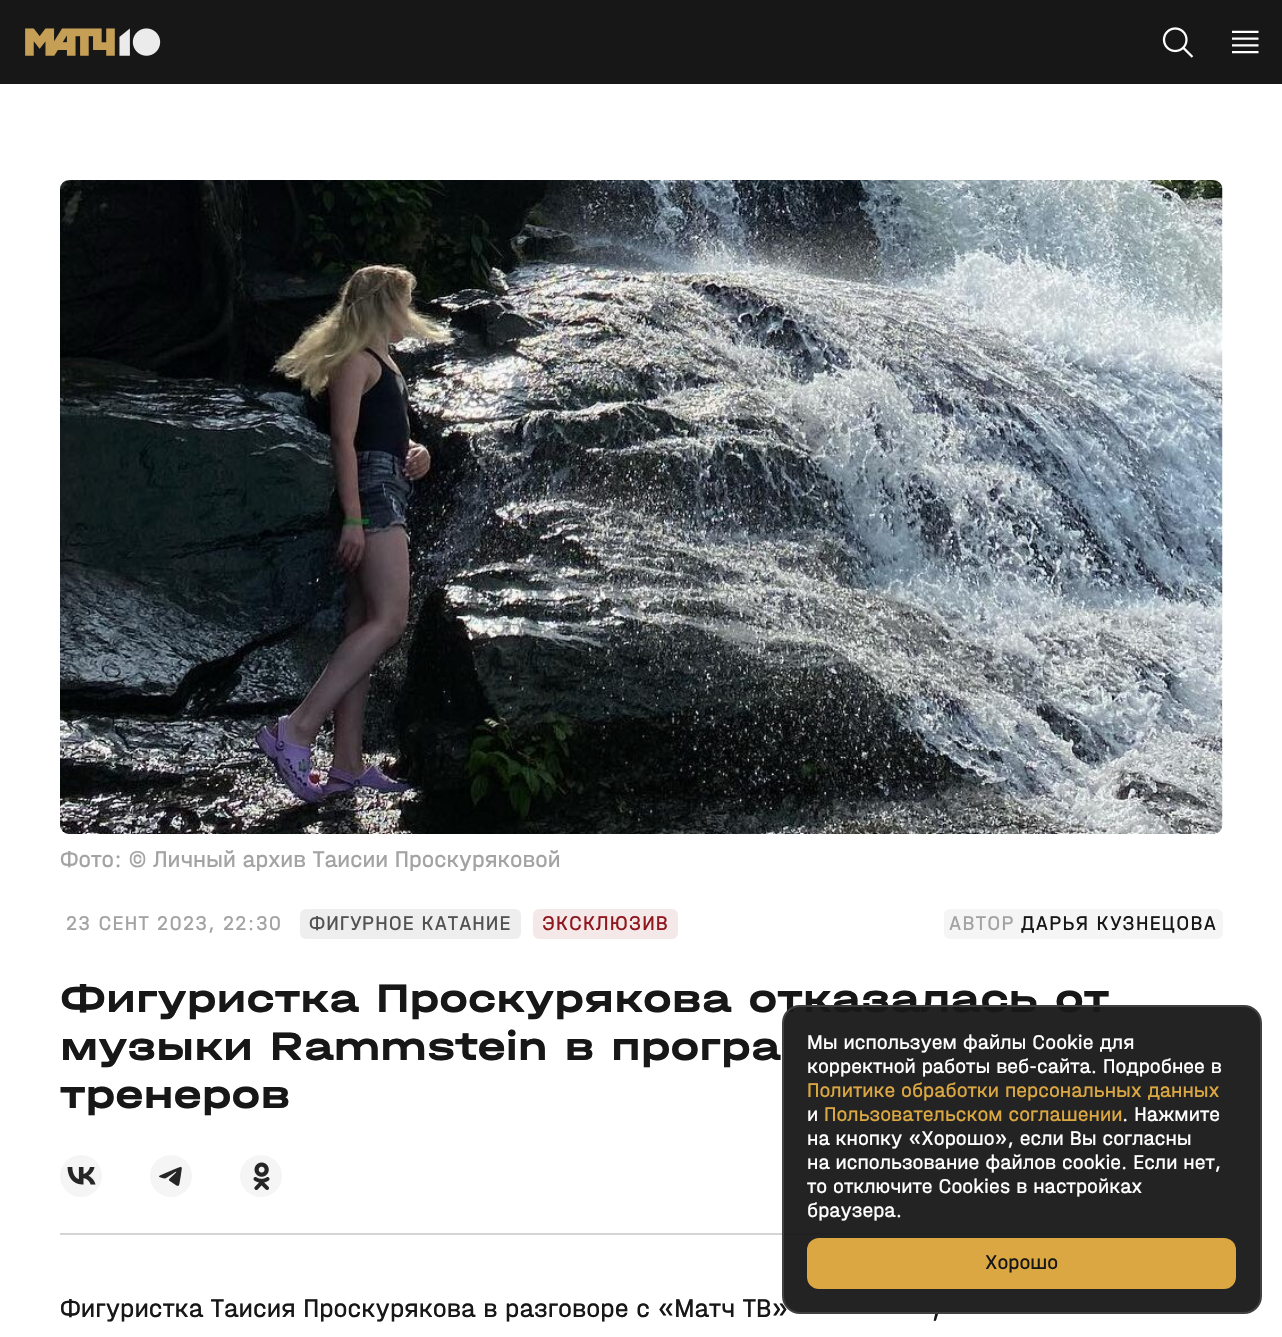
void draw(SkCanvas* c) {
SkPaint p;
p.setAntiAlias(true);
auto F=[&](const char* family, int weight, float size, bool italic = false){SkFontStyle style(weight, SkFontStyle::kNormal_Width,italic ? SkFontStyle::kItalic_Slant : SkFontStyle::kUpright_Slant);SkFont result(fontMgr->matchFamilyStyle(family, style), size);result.setSubpixel(true);return result;};
auto T=[&](const char* s, float x, float y, const SkFont& font){c->drawString(s, x, y, font, p);};
auto L=[&](const char* s, float x, float y, const SkFont& font, const SkPaint& ink, float letter, float word){std::vector<SkGlyphID> glyphs(font.countText(s, strlen(s), SkTextEncoding::kUTF8));std::vector<float> xs(glyphs.size());font.textToGlyphs(s, strlen(s), SkTextEncoding::kUTF8, glyphs);font.getXPos(glyphs, xs, x);float extra = 0;for (size_t i = 0; i < glyphs.size(); i++) {xs[i] += extra;extra += letter + word * (glyphs[i] == font.unicharToGlyph(' '));}c->drawTextBlob(SkTextBlob::MakeFromPosHGlyphs(glyphs, xs, y, font), 0, 0, ink);};
auto R=[&](float x, float y, float w, float h){c->drawRect(SkRect::MakeXYWH(x, y, w, h), p);};
auto Q=[&](float x, float y, float w, float h, float radius){c->drawRoundRect(SkRect::MakeXYWH(x, y, w, h), radius, radius, p);};
auto I=[&](const char* path, float x, float y, float w, float h){auto image = SkImages::DeferredFromEncodedData(SkData::MakeFromFileName(path));c->drawImageRect(image, SkRect::MakeXYWH(x, y, w, h), SkSamplingOptions());};
c->clear(0xffffffff);
p.setColor(0xff171717);
R(0,0,1282,84);
I("1.png",25,28,136,28);
I("2.png",1162,27,32,31);
I("3.png",1232,30,27,24);
I("4.png",60,180,1163,654);
auto f1 = F("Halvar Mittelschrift",400,24);
p.setColor(0xffa3a3a3);
T("Фото: © Личный архив Таисии Проскуряковой",60,867,f1);
auto f2 = F("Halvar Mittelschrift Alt",400,21);
L("23 СЕНТ 2023, 22:30",66,930,f2,p,1.25,0);
p.setColor(0xffeeeeee);
Q(300,909,221,30,6);
auto f3 = F("Halvar Mittelschrift",400,21);
p.setColor(0xff525252);
L("ФИГУРНОЕ КАТАНИЕ",309,930,f3,p,1,0);
p.setColor(0xfff4e8e8);
Q(533,909,145,30,6);
p.setColor(0xff8f171d);
L("ЭКСКЛЮЗИВ",542,930,f3,p,1,0);
p.setColor(0xfff5f5f5);
Q(944,909,279,30,6);
p.setColor(0xffa3a3a3);
L("АВТОР",949,930,f3,p,1.25,0);
p.setColor(0xff171717);
L("ДАРЬЯ КУЗНЕЦОВА",1021,930,f3,p,1.25,0);
auto f4 = F("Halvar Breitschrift",700,42);
T("Фигуристка Проскурякова отказалась от",60,1012,f4);
T("музыки Rammstein в програ",60,1060,f4);
T("тренеров",60,1108,f4);
p.setColor(0xfff5f5f5);
c->drawCircle(81,1176,21,p);
I("5.png",67,1167,29,18);
c->drawCircle(171,1176,21,p);
I("6.png",159,1167,23,19);
c->drawCircle(261,1176,21,p);
I("7.png",253,1162,17,28);
p.setColor(0xffd4d4d4);
R(60,1233,1163,2);
auto f5 = F("Halvar Mittelschrift",400,27);
p.setColor(0xff171717);
T("Фигуристка Таисия Проскурякова в разговоре с «Матч ТВ»",60,1317,f5);
T(",",932,1317,f5);
p.setColor(0xf2171717);
c->drawRoundRect(SkRect::MakeXYWH(783,1006,478,307),17,17,p);
p.setStroke(true);
p.setStrokeWidth(2);
p.setColor(0xff404040);
c->drawRoundRect(SkRect::MakeXYWH(783,1006,478,307),17,17,p);
p.setStroke(false);
p.setColor(0xffffffff);
T("Мы используем файлы Сookie для",807,1049,f3);
T("корректной работы веб-сайта. Подробнее в",807,1073,f3);
p.setColor(0xffdba742);
T("Политике обработки персональных данных",807,1097,f3);
p.setColor(0xffffffff);
T("и",807,1121,f3);
p.setColor(0xffdba742);
T("Пользовательском соглашении",824,1121,f3);
p.setColor(0xffffffff);
T(". Нажмите",1122,1121,f3);
T("на кнопку «Хорошо», если Вы согласны",807,1145,f3);
T("на использование файлов cookie. Если нет,",807,1169,f3);
T("то отключите Cookies в настройках",807,1193,f3);
T("браузера.",807,1217,f3);
p.setColor(0xffdba742);
Q(807,1238,429,51,12);
p.setColor(0xff171717);
T("Хорошо",985,1269,f3);
}
